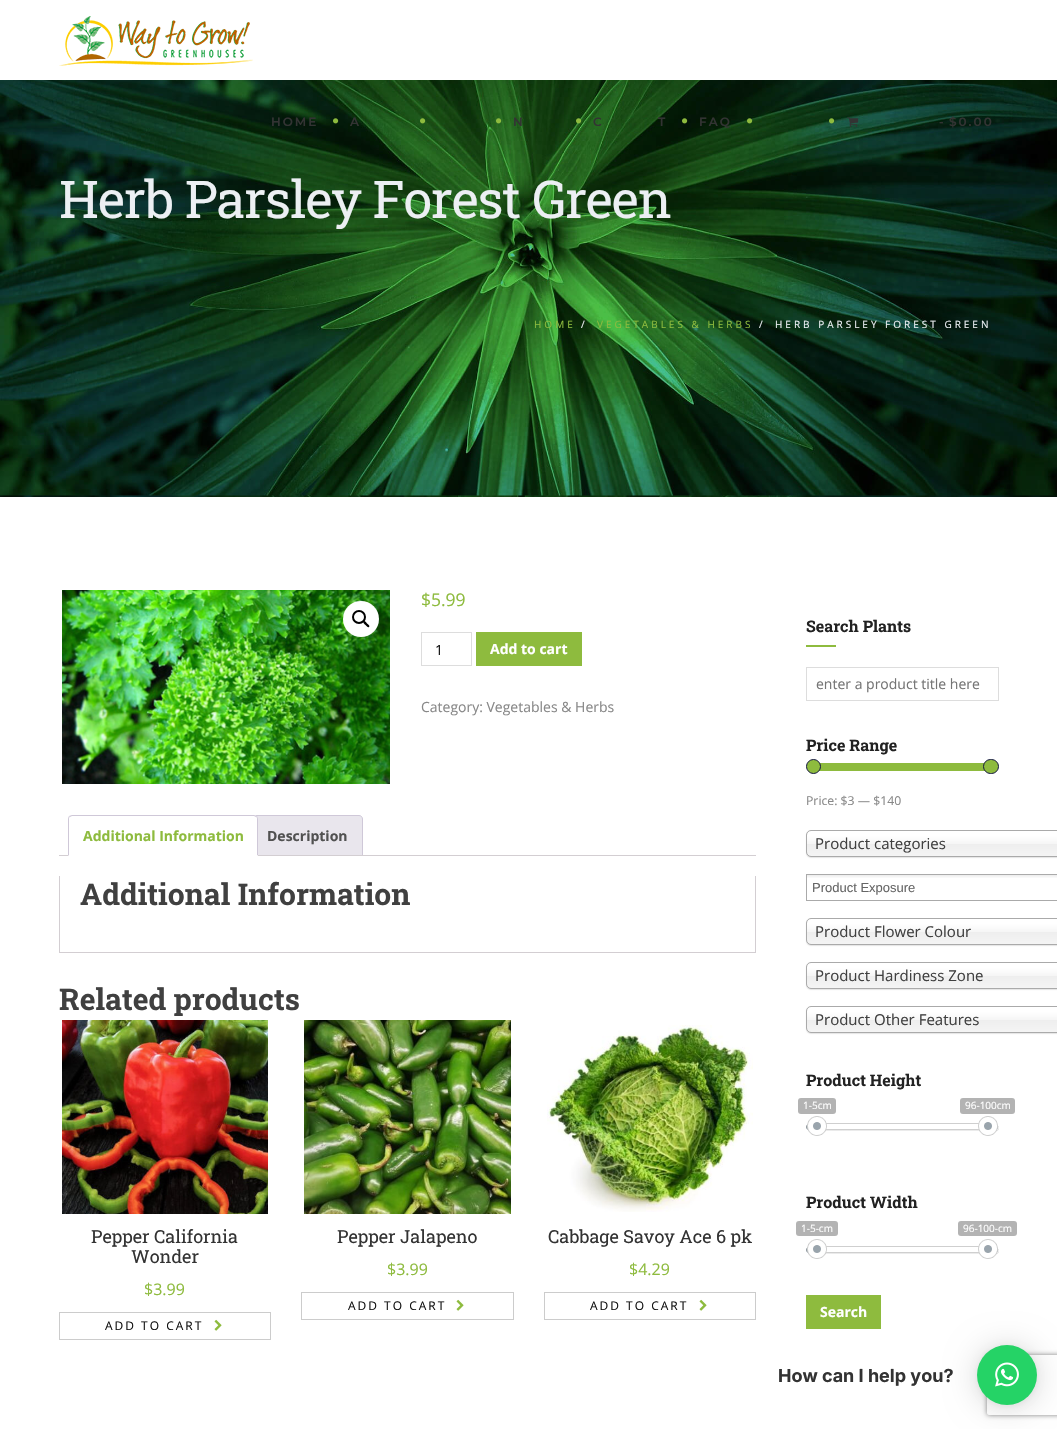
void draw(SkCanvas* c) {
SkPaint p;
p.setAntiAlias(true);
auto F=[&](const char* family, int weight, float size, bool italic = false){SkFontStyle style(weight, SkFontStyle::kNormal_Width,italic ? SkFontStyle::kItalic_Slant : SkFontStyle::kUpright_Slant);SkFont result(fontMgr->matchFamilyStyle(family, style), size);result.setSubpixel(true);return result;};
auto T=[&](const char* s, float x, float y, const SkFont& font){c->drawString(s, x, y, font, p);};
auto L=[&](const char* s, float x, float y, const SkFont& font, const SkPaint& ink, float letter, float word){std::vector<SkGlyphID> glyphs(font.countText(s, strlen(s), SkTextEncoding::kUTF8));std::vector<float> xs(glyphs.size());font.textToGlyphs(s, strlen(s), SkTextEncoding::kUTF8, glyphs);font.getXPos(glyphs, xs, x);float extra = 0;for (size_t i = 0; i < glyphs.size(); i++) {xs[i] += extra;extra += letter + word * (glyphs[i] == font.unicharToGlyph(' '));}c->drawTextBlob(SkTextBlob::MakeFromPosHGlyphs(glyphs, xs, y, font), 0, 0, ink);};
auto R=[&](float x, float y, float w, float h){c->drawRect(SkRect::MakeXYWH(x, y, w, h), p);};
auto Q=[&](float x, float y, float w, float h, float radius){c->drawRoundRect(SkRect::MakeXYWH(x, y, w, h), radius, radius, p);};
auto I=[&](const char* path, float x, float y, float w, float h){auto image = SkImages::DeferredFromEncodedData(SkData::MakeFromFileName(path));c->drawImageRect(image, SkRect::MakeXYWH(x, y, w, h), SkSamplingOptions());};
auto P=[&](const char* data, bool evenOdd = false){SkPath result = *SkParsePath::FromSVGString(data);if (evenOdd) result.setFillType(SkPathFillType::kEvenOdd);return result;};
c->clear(0xffffffff);
I("1.png",59,16,194,50);
I("10.png",0,80,1057,417);
auto f1 = F("Montserrat",600,12);
p.setColor(0xff333333);
L("HOME",271,126,f1,p,2,0);
I("2.png",333,118,6,6);
L("A",350,126,f1,p,2,0);
I("3.png",420,118,6,6);
I("4.png",496,118,6,6);
L("N",513,126,f1,p,2,0);
I("5.png",576,118,6,6);
L("C",593,126,f1,p,2,0);
L("T",658,126,f1,p,2,0);
I("6.png",682,118,6,6);
L("FAQ",699,126,f1,p,2,0);
I("7.png",747,118,6,6);
I("8.png",829,118,6,6);
I("9.png",847,117,12,10);
L("-",939,126,f1,p,2,0);
L("$0.00",949,126,f1,p,2,0);
auto f2 = F("Roboto Slab",400,52);
p.setColor(0xffeceff3);
L("Herb Parsley Forest Green",59,218,f2,p,-1,0);
auto f3 = F("Open Sans",400,10);
p.setColor(0xff8ebb3e);
L("HOME",534,328,f3,p,3,0);
p.setColor(0xffeceff3);
L("/",581,328,f3,p,3,0);
p.setColor(0xff8ebb3e);
L("VEGETABLES & HERBS",597,328,f3,p,3,0);
p.setColor(0xffeceff3);
L("/",759,328,f3,p,3,0);
L("HERB PARSLEY FOREST GREEN",775,328,f3,p,3,0);
I("11.png",62,590,328,194);
p.setColor(0xffffffff);
c->drawCircle(361,619,18,p);
p.setStroke(true);
p.setStrokeWidth(2);
p.setColor(0xff000000);
c->drawCircle(359,617,6,p);
p.setStroke(false);
c->drawPath(P("M363.5 621.5c1-1.5 3 1.5 3.5 2c.5 .5 3.5 2.5 2 3.5c-1 1-3-1.5-3.5-2c-.5-.5-3-2.5-2-3.5z"),p);
auto f4 = F("Open Sans",400,17.5);
p.setColor(0xff8ebb3e);
T("$5.99",421,606,f4);
p.setStroke(true);
p.setStrokeWidth(1);
p.setColor(0xffdddddd);
c->drawRect(SkRect::MakeXYWH(421.5,632.5,50,33),p);
auto f5 = F("Open Sans",400,14);
p.setStroke(false);
p.setColor(0xff111111);
T("1",435,655,f5);
p.setColor(0xff8ebb3e);
R(476,632,106,34);
auto f6 = F("Open Sans",700,14);
p.setColor(0xffffffff);
T("Add to cart",490,654,f6);
p.setColor(0xff888888);
T("Category: Vegetables & Herbs",421,712,f5);
p.setColor(0xffe9e6ed);
c->drawPath(P("M256 815.5h103c2 0 3.5 1.5 3.5 3.5v36.5h-110v-36.5c0-2 1.5-3.5 3.5-3.5z"),p);
p.setStroke(true);
p.setColor(0xffcfc8d8);
c->drawPath(P("M256 815.5h103c2 0 3.5 1.5 3.5 3.5v36.5h-110v-36.5c0-2 1.5-3.5 3.5-3.5z"),p);
p.setStroke(false);
p.setColor(0xffd3ced2);
R(59,855,697,1);
p.setColor(0xffffffff);
c->drawPath(P("M72 815h182c2 0 4 2 4 4v37h-190v-37c0-2 2-4 4-4z"),p);
p.setColor(0xffcfc8d8);
c->drawPath(P("M72 815l-3 1l1 1l2-1h182l2 1l1-1l-3-1z"),p);
c->drawPath(P("M258 856v-37c0-1-.5-2-1-3l-1 1c1 0 1 1 1 2v36z"),p);
p.setColor(0xffffffff);
c->drawPath(P("M258 856l-1-1h-188l-1 1z"),p);
p.setColor(0xffcfc8d8);
c->drawPath(P("M68 856l1-1v-36c0-1 0-2 1-2l-1-1c-.5 1-1 2-1 3z"),p);
p.setColor(0xff8ebb3e);
T("Additional Information",83,841,f6);
p.setColor(0xff515151);
T("Description",267,841,f6);
p.setColor(0xffd3ced2);
R(755,876,1,77);
R(59,952,697,1);
R(59,876,1,77);
auto f7 = F("Roboto Slab",700,30);
p.setColor(0xff404040);
T("Additional Information",80,905,f7);
T("Related products",59,1010,f7);
I("12.png",62,1020,206,194);
auto f8 = F("Roboto Slab",400,18);
p.setColor(0xff333333);
T("Pepper California",91,1243,f8);
T("Wonder",131,1263,f8);
auto f9 = F("Open Sans",400,16);
p.setColor(0xff8ebb3e);
T("$3.99",144,1295,f9);
p.setStroke(true);
p.setColor(0xffcccccc);
c->drawRect(SkRect::MakeXYWH(59.5,1312.5,211,27),p);
auto f10 = F("Open Sans",400,12);
p.setStroke(false);
p.setColor(0xff111111);
L("ADD TO CART",105,1330,f10,p,2,0);
I("13.png",214,1319,8,12);
I("14.png",304,1020,207,194);
p.setColor(0xff333333);
T("Pepper Jalapeno",337,1243,f8);
p.setColor(0xff8ebb3e);
T("$3.99",387,1275,f9);
p.setStroke(true);
p.setColor(0xffcccccc);
c->drawRect(SkRect::MakeXYWH(301.5,1292.5,212,27),p);
p.setStroke(false);
p.setColor(0xff111111);
L("ADD TO CART",348,1310,f10,p,2,0);
I("13.png",456,1299,8,12);
I("15.png",547,1025,206,187);
p.setColor(0xff333333);
T("Cabbage Savoy Ace 6 pk",548,1243,f8);
p.setColor(0xff8ebb3e);
T("$4.29",629,1275,f9);
p.setStroke(true);
p.setColor(0xffcccccc);
c->drawRect(SkRect::MakeXYWH(544.5,1292.5,211,27),p);
p.setStroke(false);
p.setColor(0xff111111);
L("ADD TO CART",590,1310,f10,p,2,0);
I("13.png",699,1299,8,12);
auto f11 = F("Roboto Slab",700,16);
p.setColor(0xff222222);
T("Search Plants",806,632,f11);
p.setColor(0xff8ebb3e);
R(806,645,30,2);
p.setStroke(true);
p.setColor(0xffdddddd);
c->drawRect(SkRect::MakeXYWH(806.5,667.5,192,33),p);
p.setStroke(false);
p.setColor(0xff757575);
T("enter a product title here",816,689,f5);
p.setColor(0xff222222);
T("Price Range",806,751,f11);
p.setColor(0xff8ebb3e);
R(814,763,177,8);
c->drawCircle(813.5,766.5,7,p);
p.setStroke(true);
p.setColor(0xff141741);
c->drawCircle(813.5,766.5,7,p);
p.setStroke(false);
p.setColor(0xff8ebb3e);
c->drawRoundRect(SkRect::MakeXYWH(983.5,759.5,15,14),7,7,p);
p.setStroke(true);
p.setColor(0xff141741);
c->drawRoundRect(SkRect::MakeXYWH(983.5,759.5,15,14),7,7,p);
auto f12 = F("Open Sans",400,12.25);
p.setStroke(false);
p.setColor(0xff888888);
T("Price: $3 — $140",806,805,f12);
p.setColor(0x1a000000);
p.setMaskFilter(SkMaskFilter::MakeBlur(kNormal_SkBlurStyle, .5));
c->drawRoundRect(SkRect::MakeXYWH(806,831,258,27),5,5,p);
p.setMaskFilter(nullptr);
{
const SkColor colors[] = {0xffffffff,0xfff6f6f6,0xffeeeeee,0xfff4f4f4};
const float stops[] = {.2,.5,.52,1};
const SkPoint ends[] = {{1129,831}, {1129,856}};
p.setShader(SkGradientShader::MakeLinear(ends, colors, stops, 4, SkTileMode::kClamp));
p.setAlpha(255);
}
c->drawPath(P("M811 831h246v25h-246c-2 0-4-2-4-4v-17c0-2 2-4 4-4z"),p);
p.setStroke(true);
p.setShader(nullptr);
p.setColor(0xffaaaaaa);
c->drawRoundRect(SkRect::MakeXYWH(806.5,830.5,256,26),4.5,4.5,p);
auto f13 = F("Open Sans",400,15);
p.setStroke(false);
p.setColor(0xff404040);
T("Product categories",815,849,f13);
{
const SkColor colors[] = {0xffeeeeee,0xffffffff};
const float stops[] = {.01,.15};
const SkPoint ends[] = {{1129,875}, {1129,900}};
p.setShader(SkGradientShader::MakeLinear(ends, colors, stops, 2, SkTileMode::kClamp));
p.setAlpha(255);
}
R(807,875,250,3);
p.setStroke(true);
p.setShader(nullptr);
p.setColor(0xffaaaaaa);
c->drawRect(SkRect::MakeXYWH(806.5,874.5,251,26),p);
auto f14 = F("Liberation Sans",400,13);
p.setStroke(false);
p.setColor(0xff666666);
T("Product Exposure",812,892,f14);
p.setColor(0x1a000000);
p.setMaskFilter(SkMaskFilter::MakeBlur(kNormal_SkBlurStyle, .5));
c->drawRoundRect(SkRect::MakeXYWH(806,919,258,27),5,5,p);
p.setMaskFilter(nullptr);
{
const SkColor colors[] = {0xffffffff,0xfff6f6f6,0xffeeeeee,0xfff4f4f4};
const float stops[] = {.2,.5,.52,1};
const SkPoint ends[] = {{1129,919}, {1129,944}};
p.setShader(SkGradientShader::MakeLinear(ends, colors, stops, 4, SkTileMode::kClamp));
p.setAlpha(255);
}
c->drawPath(P("M811 919h246v25h-246c-2 0-4-2-4-4v-17c0-2 2-4 4-4z"),p);
p.setStroke(true);
p.setShader(nullptr);
p.setColor(0xffaaaaaa);
c->drawRoundRect(SkRect::MakeXYWH(806.5,918.5,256,26),4.5,4.5,p);
p.setStroke(false);
p.setColor(0xff404040);
T("Product Flower Colour",815,937,f13);
p.setColor(0x1a000000);
p.setMaskFilter(SkMaskFilter::MakeBlur(kNormal_SkBlurStyle, .5));
c->drawRoundRect(SkRect::MakeXYWH(806,963,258,27),5,5,p);
p.setMaskFilter(nullptr);
{
const SkColor colors[] = {0xffffffff,0xfff6f6f6,0xffeeeeee,0xfff4f4f4};
const float stops[] = {.2,.5,.52,1};
const SkPoint ends[] = {{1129,963}, {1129,988}};
p.setShader(SkGradientShader::MakeLinear(ends, colors, stops, 4, SkTileMode::kClamp));
p.setAlpha(255);
}
c->drawPath(P("M811 963h246v25h-246c-2 0-4-2-4-4v-17c0-2 2-4 4-4z"),p);
p.setStroke(true);
p.setShader(nullptr);
p.setColor(0xffaaaaaa);
c->drawRoundRect(SkRect::MakeXYWH(806.5,962.5,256,26),4.5,4.5,p);
p.setStroke(false);
p.setColor(0xff404040);
T("Product Hardiness Zone",815,981,f13);
p.setColor(0x1a000000);
p.setMaskFilter(SkMaskFilter::MakeBlur(kNormal_SkBlurStyle, .5));
c->drawRoundRect(SkRect::MakeXYWH(806,1007,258,27),5,5,p);
p.setMaskFilter(nullptr);
{
const SkColor colors[] = {0xffffffff,0xfff6f6f6,0xffeeeeee,0xfff4f4f4};
const float stops[] = {.2,.5,.52,1};
const SkPoint ends[] = {{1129,1007}, {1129,1032}};
p.setShader(SkGradientShader::MakeLinear(ends, colors, stops, 4, SkTileMode::kClamp));
p.setAlpha(255);
}
c->drawPath(P("M811 1007h246v25h-246c-2 0-4-2-4-4v-17c0-2 2-4 4-4z"),p);
p.setStroke(true);
p.setShader(nullptr);
p.setColor(0xffaaaaaa);
c->drawRoundRect(SkRect::MakeXYWH(806.5,1006.5,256,26),4.5,4.5,p);
p.setStroke(false);
p.setColor(0xff404040);
T("Product Other Features",815,1025,f13);
p.setColor(0xff222222);
T("Product Height",806,1086,f11);
p.setColor(0xffb3b3b3);
Q(798,1098,38,16,3);
p.setColor(0xffffffff);
T("1-5cm",803,1109,f3);
p.setColor(0xffb3b3b3);
Q(960,1098,55,16,3);
p.setColor(0xffffffff);
T("96-100cm",965,1109,f3);
I("16.png",806,1124,21,7);
I("17.png",827,1130,152,1);
I("18.png",977,1124,22,7);
I("20.png",818,1123,169,8);
I("19.png",807,1116,20,20);
I("21.png",978,1116,20,20);
p.setColor(0xff222222);
T("Product Width",806,1208,f11);
p.setColor(0xffb3b3b3);
Q(796,1221,42,15,3);
p.setColor(0xffffffff);
T("1-5-cm",801,1232,f3);
p.setColor(0xffb3b3b3);
Q(958,1221,59,15,3);
p.setColor(0xffffffff);
T("96-100-cm",963,1232,f3);
I("16.png",806,1247,21,7);
I("17.png",827,1253,152,1);
I("18.png",977,1247,22,7);
I("20.png",818,1246,169,8);
I("19.png",807,1239,20,20);
I("21.png",978,1239,20,20);
p.setColor(0xff8ebb3e);
R(806,1295,75,34);
p.setColor(0xffffffff);
T("Search",820,1317,f6);
p.setColor(0x29000000);
p.setMaskFilter(SkMaskFilter::MakeBlur(kNormal_SkBlurStyle, 16));
c->drawRoundRect(SkRect::MakeXYWH(977,1347,60,60),30,30,p);
p.setMaskFilter(nullptr);
p.setColor(0x0f000000);
p.setMaskFilter(SkMaskFilter::MakeBlur(kNormal_SkBlurStyle, 3));
c->drawRoundRect(SkRect::MakeXYWH(977,1346,60,60),30,30,p);
p.setMaskFilter(nullptr);
c->save();
c->clipPath(P("M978 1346h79v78h-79zm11 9h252c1 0 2 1 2 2v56c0 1-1 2-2 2h-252c-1 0-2-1-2-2v-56c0-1 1-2 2-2z",true),true);
p.setColor(0xff808080);
p.setMaskFilter(SkMaskFilter::MakeBlur(kNormal_SkBlurStyle, 2.5));
c->drawRoundRect(SkRect::MakeXYWH(987,1355,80,60),2,2,p);
p.setMaskFilter(nullptr);
c->restore();
p.setColor(0xff25d366);
c->drawCircle(1007,1375,30,p);
auto f15 = F("Inter",700,18);
p.setColor(0xff333333);
T("How can I help you?",778,1382,f15);
I("22.png",995,1362,24,25);
}
